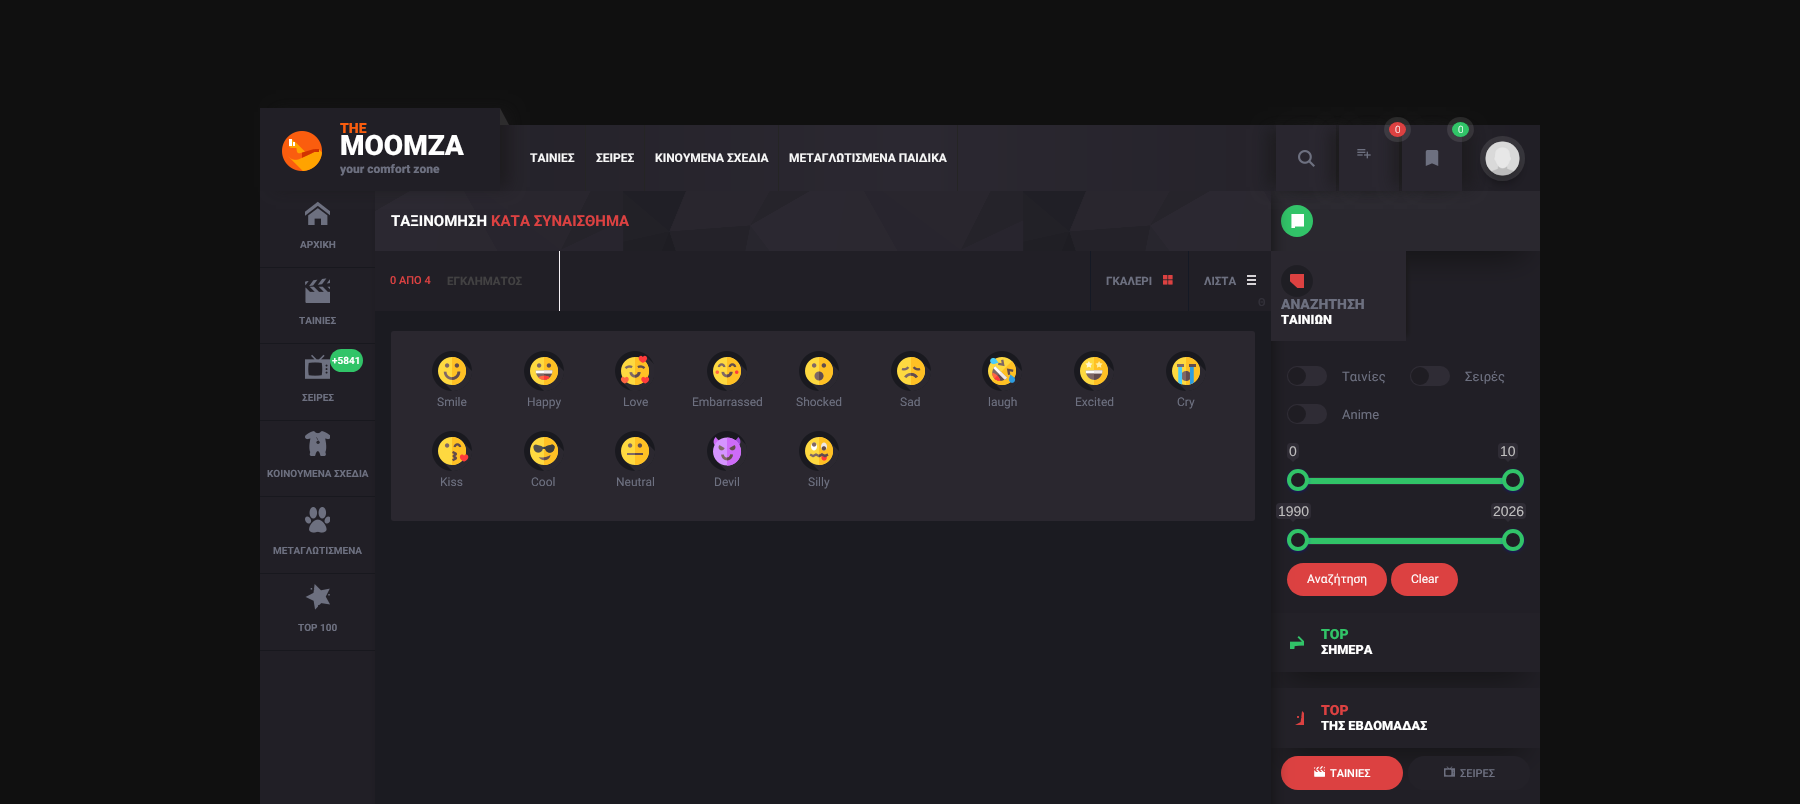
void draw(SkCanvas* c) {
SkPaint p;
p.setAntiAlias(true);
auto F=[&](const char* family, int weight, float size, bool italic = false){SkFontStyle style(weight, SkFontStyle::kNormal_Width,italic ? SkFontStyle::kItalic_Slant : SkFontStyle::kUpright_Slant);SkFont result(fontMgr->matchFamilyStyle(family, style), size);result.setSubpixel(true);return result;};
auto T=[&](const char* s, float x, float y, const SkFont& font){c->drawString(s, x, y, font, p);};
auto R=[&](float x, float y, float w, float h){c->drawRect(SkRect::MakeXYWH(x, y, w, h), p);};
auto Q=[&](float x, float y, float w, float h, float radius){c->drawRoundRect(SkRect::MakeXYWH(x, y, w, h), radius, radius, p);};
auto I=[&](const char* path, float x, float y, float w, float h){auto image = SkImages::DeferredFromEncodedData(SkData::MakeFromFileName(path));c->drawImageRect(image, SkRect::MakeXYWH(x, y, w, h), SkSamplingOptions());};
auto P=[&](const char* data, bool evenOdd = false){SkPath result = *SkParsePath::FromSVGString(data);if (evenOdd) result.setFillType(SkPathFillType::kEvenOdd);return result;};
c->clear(0xff101010);
p.setColor(0xff211f26);
R(260,191,115,613);
p.setColor(0xff18181e);
R(260,267,115,1);
R(260,343,115,1);
R(260,420,115,1);
p.setColor(0xff31c468);
Q(330,349,33,23,11.5);
p.setColor(0xff18181e);
R(260,496,115,1);
R(260,573,115,1);
R(260,650,115,1);
p.setColor(0xff211f26);
R(1271,251,269,553);
p.setColor(0xff101010);
p.setMaskFilter(SkMaskFilter::MakeBlur(kNormal_SkBlurStyle, 17));
c->drawRect(SkRect::MakeXYWH(1286,225,239,30),p);
p.setMaskFilter(nullptr);
p.setColor(0xff2a282f);
R(1271,191,269,60);
p.setColor(0xff31c368);
c->drawCircle(1297,221,16,p);
I("28.png",1291,214,13,14);
p.setColor(0xff101010);
p.setMaskFilter(SkMaskFilter::MakeBlur(kNormal_SkBlurStyle, 17));
c->drawRect(SkRect::MakeXYWH(1286,646,239,30),p);
p.setMaskFilter(nullptr);
p.setColor(0xffdc4141);
Q(1287,563,100,33,16.5);
p.setColor(0xff232128);
R(1271,613,269,59);
I("30.png",1290,636,14,13);
p.setColor(0xff101010);
p.setMaskFilter(SkMaskFilter::MakeBlur(kNormal_SkBlurStyle, 17));
c->drawRect(SkRect::MakeXYWH(1286,722,239,30),p);
p.setMaskFilter(nullptr);
p.setColor(0xff232128);
R(1271,688,269,60);
I("31.png",1295,711,9,14);
p.setColor(0xffdc4141);
Q(1281,756,122,34,17);
p.setColor(0xff101010);
p.setMaskFilter(SkMaskFilter::MakeBlur(kNormal_SkBlurStyle, 8));
c->drawRect(SkRect::MakeXYWH(385,196,886,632),p);
p.setMaskFilter(nullptr);
{
const SkColor colors[] = {0xff211f26,0xff2b2831,0xff211f26};
const float stops[] = {0,.51,1};
const SkPoint ends[] = {{260,158}, {1540,158}};
p.setShader(SkGradientShader::MakeLinear(ends, colors, stops, 3, SkTileMode::kClamp));
p.setAlpha(255);
}
R(500,125,1040,66);
I("6.png",305,201,25,24);
I("12.png",375,191,896,60);
p.setShader(nullptr);
p.setColor(0xc9191819);
p.setMaskFilter(SkMaskFilter::MakeBlur(kNormal_SkBlurStyle, 7.5));
c->drawRect(SkRect::MakeXYWH(276,112,232,75),p);
p.setMaskFilter(nullptr);
p.setColor(0xff211f26);
R(260,108,240,83);
p.setColor(0xff2d2c2d);
c->drawPath(P("M500 125v-17l9 17z"),p);
auto f1 = F("Roboto",900,14);
p.setColor(0xfffa5d0e);
T("THE",340,133,f1);
I("1.png",282,131,40,40);
auto f2 = F("Roboto",900,28);
p.setColor(0xffffffff);
T("MOOMZA",340,155,f2);
auto f3 = F("Roboto",900,12);
p.setColor(0xff6d7080);
T("your comfort zone",340,173,f3);
p.setColor(0xc9191819);
p.setMaskFilter(SkMaskFilter::MakeBlur(kNormal_SkBlurStyle, 7.5));
c->drawRect(SkRect::MakeXYWH(1268,129,52,58),p);
p.setMaskFilter(nullptr);
p.setMaskFilter(SkMaskFilter::MakeBlur(kNormal_SkBlurStyle, 7.5));
c->drawRect(SkRect::MakeXYWH(1292,129,52,58),p);
p.setMaskFilter(nullptr);
p.setColor(0xff29262f);
R(1276,125,60,66);
I("2.png",1298,150,17,17);
p.setColor(0xc9191819);
p.setMaskFilter(SkMaskFilter::MakeBlur(kNormal_SkBlurStyle, 7.5));
c->drawRect(SkRect::MakeXYWH(1331,129,52,58),p);
p.setMaskFilter(nullptr);
p.setMaskFilter(SkMaskFilter::MakeBlur(kNormal_SkBlurStyle, 7.5));
c->drawRect(SkRect::MakeXYWH(1355,129,52,58),p);
p.setMaskFilter(nullptr);
p.setColor(0xff29262f);
R(1339,125,60,66);
I("3.png",1357,149,14,10);
p.setColor(0xc9191819);
p.setMaskFilter(SkMaskFilter::MakeBlur(kNormal_SkBlurStyle, 7.5));
c->drawRect(SkRect::MakeXYWH(1394,129,52,58),p);
p.setMaskFilter(nullptr);
p.setMaskFilter(SkMaskFilter::MakeBlur(kNormal_SkBlurStyle, 7.5));
c->drawRect(SkRect::MakeXYWH(1418,129,52,58),p);
p.setMaskFilter(nullptr);
p.setColor(0xff29262f);
R(1402,125,60,66);
p.setStroke(true);
p.setStrokeWidth(5);
p.setColor(0x21c6c7c6);
c->drawPath(P("M1397.5 119.5c14.5 0 14.5 20 0 20c-14.5 0-14.5-20 0-20z"),p);
p.setStroke(false);
p.setColor(0xffdc4141);
c->drawOval(SkRect::MakeXYWH(1389,122,17,15),p);
auto f4 = F("Roboto",300,10);
p.setColor(0xffffffff);
T("0",1395,133,f4);
p.setColor(0x7a000000);
p.setMaskFilter(SkMaskFilter::MakeBlur(kNormal_SkBlurStyle, 6));
c->drawRoundRect(SkRect::MakeXYWH(1487,151,31,31),15.5,15.5,p);
p.setMaskFilter(nullptr);
p.setStroke(true);
p.setColor(0x21c6c7c6);
c->drawPath(P("M1460.5 119.5c14.5 0 14.5 20 0 20c-14.5 0-14.5-20 0-20z"),p);
p.setStroke(false);
p.setColor(0xff31c468);
c->drawOval(SkRect::MakeXYWH(1452,122,17,15),p);
p.setColor(0xffffffff);
T("0",1458,133,f4);
I("4.png",1425,150,14,16);
p.setStroke(true);
p.setColor(0x21c6c7c6);
c->drawCircle(1502.5,158.5,20,p);
I("5.png",1485,141,35,35);
p.setStroke(false);
p.setColor(0xff252525);
R(585,125,1,66);
auto f5 = F("Roboto",700,12);
p.setColor(0xfff7f7f7);
T("ΤΑΙΝΙΕΣ",530,162,f5);
p.setColor(0xff211f26);
R(375,251,896,60);
auto f6 = F("Roboto",500,11);
p.setColor(0xff323039);
T("Θ",1258,306,f6);
p.setColor(0xff252525);
R(644,125,1,66);
p.setColor(0xfff7f7f7);
T("ΣΕΙΡΕΣ",596,162,f5);
p.setColor(0xff252525);
R(778,125,1,66);
p.setColor(0xfff7f7f7);
T("ΚΙΝΟΥΜΕΝΑ ΣΧΕΔΙΑ",655,162,f5);
p.setColor(0xff252525);
R(957,125,1,66);
p.setColor(0xfff7f7f7);
T("ΜΕΤΑΓΛΩΤΙΣΜΕΝΑ ΠΑΙΔΙΚΑ",789,162,f5);
auto f7 = F("Roboto",700,10);
p.setColor(0xff6d7080);
T("ΑΡΧΙΚΗ",300,248,f7);
I("7.png",305,278,25,25);
T("ΤΑΙΝΙΕΣ",299,324,f7);
I("8.png",305,354,25,25);
p.setColor(0xffffffff);
T("+5841",332,364,f7);
p.setColor(0xff6d7080);
T("ΣΕΙΡΕΣ",302,401,f7);
I("9.png",305,431,25,25);
T("ΚΟΙΝΟΥΜΕΝΑ ΣΧΕΔΙΑ",267,477,f7);
I("10.png",305,507,25,26);
T("ΜΕΤΑΓΛΩΤΙΣΜΕΝΑ",273,554,f7);
I("11.png",305,584,25,26);
T("TOP 100",298,631,f7);
p.setColor(0xff1b1b21);
R(375,311,896,493);
auto f8 = F("Roboto",700,15);
p.setColor(0xffffffff);
T("ΤΑΞΙΝΟΜΗΣΗ",391,226,f8);
p.setColor(0xffdc4141);
T("ΚΑΤΑ ΣΥΝΑΙΣΘΗΜΑ",491,226,f8);
p.setColor(0xfff7f3f7);
R(559,251,1,60);
p.setColor(0xffdc4141);
T("0 ΑΠΟ 4",390,284,f6);
auto f9 = F("Roboto",700,11.5);
p.setColor(0xff424142);
T("ΕΓΚΛΗΜΑΤΟΣ",447,285,f9);
p.setColor(0xff151924);
R(1090,251,1,60);
p.setColor(0xff6d7080);
T("ΓΚΑΛΕΡΙ",1106,285,f9);
I("13.png",1163,275,10,10);
p.setColor(0xff151924);
R(1188,251,1,60);
p.setColor(0xff6d7080);
T("ΛΙΣΤΑ",1204,285,f9);
p.setColor(0xffd6d3d6);
R(1247,283,9,2);
R(1247,279,9,2);
R(1247,275,9,2);
p.setColor(0xff2a272f);
Q(391,331,864,190,3);
I("14.png",432,351,40,40);
auto f10 = F("Roboto",400,12);
p.setColor(0xff6d7080);
T("Smile",437,406,f10);
I("15.png",524,351,40,40);
T("Happy",527,406,f10);
I("16.png",615,351,39,40);
T("Love",623,406,f10);
I("17.png",707,351,40,40);
T("Embarrassed",692,406,f10);
I("18.png",799,351,40,40);
T("Shocked",796,406,f10);
I("19.png",891,351,40,40);
T("Sad",900,406,f10);
I("20.png",982,351,40,40);
T("laugh",988,406,f10);
I("21.png",1074,351,40,40);
T("Excited",1075,406,f10);
I("22.png",1166,351,40,40);
T("Cry",1177,406,f10);
I("23.png",432,431,40,40);
T("Kiss",440,486,f10);
I("24.png",524,431,40,40);
T("Cool",531,486,f10);
I("25.png",615,431,40,40);
T("Neutral",616,486,f10);
I("26.png",707,431,40,40);
T("Devil",714,486,f10);
I("27.png",799,431,40,40);
T("Silly",808,486,f10);
p.setColor(0xff191819);
p.setMaskFilter(SkMaskFilter::MakeBlur(kNormal_SkBlurStyle, 2.5));
c->drawRect(SkRect::MakeXYWH(1283,256,125,80),p);
p.setMaskFilter(nullptr);
p.setColor(0xff2a272f);
R(1271,251,135,90);
p.setColor(0xff1f1e24);
c->drawCircle(1297,281,16,p);
I("29.png",1290,274,14,14);
p.setColor(0xff6d7080);
T("ΑΝΑΖΗΤΗΣΗ",1281,309,f1);
auto f11 = F("Roboto",900,12.75);
p.setColor(0xffffffff);
T("ΤΑΙΝΙΩΝ",1281,324,f11);
p.setColor(0xff2f2c35);
Q(1287,366,40,20,10);
p.setColor(0xff1f1d23);
c->drawCircle(1297,376,9,p);
auto f12 = F("Roboto",400,13);
p.setColor(0xff6d7080);
T("Ταινίες",1342,381,f12);
p.setColor(0xff2f2c35);
Q(1410,366,40,20,10);
p.setColor(0xff1f1d23);
c->drawCircle(1420,376,9,p);
p.setColor(0xff6d7080);
T("Σειρές",1465,381,f12);
p.setColor(0xff2f2c35);
Q(1287,404,40,20,10);
p.setColor(0xff1f1d23);
c->drawCircle(1297,414,9,p);
p.setColor(0xff6d7080);
T("Anime",1342,419,f12);
p.setColor(0xff2f2c35);
Q(1287,443,12,16,4);
auto f13 = F("Liberation Sans",400,14);
p.setColor(0xffbfbebe);
T("0",1289,456,f13);
p.setColor(0xff2f2c35);
c->drawPath(P("M1290 459h6l-3 3z"),p);
Q(1498,443,20,16,4);
p.setColor(0xffbfbebe);
T("10",1500,456,f13);
p.setColor(0xff2f2c35);
c->drawPath(P("M1505 459h6l-3 3z"),p);
Q(1287,477,237,8,4);
p.setColor(0xff31c368);
R(1308,478,195,6);
p.setColor(0x4d0000ff);
p.setMaskFilter(SkMaskFilter::MakeBlur(kNormal_SkBlurStyle, 1.5));
c->drawRoundRect(SkRect::MakeXYWH(1287,470,22,22),11,11,p);
p.setMaskFilter(nullptr);
p.setColor(0xff1f1d23);
c->drawCircle(1298,480,9,p);
p.setStroke(true);
p.setStrokeWidth(4);
p.setColor(0xff31c368);
c->drawCircle(1298,480,9,p);
p.setStroke(false);
p.setColor(0x4d0000ff);
p.setMaskFilter(SkMaskFilter::MakeBlur(kNormal_SkBlurStyle, 1.5));
c->drawRoundRect(SkRect::MakeXYWH(1502,470,22,22),11,11,p);
p.setMaskFilter(nullptr);
p.setColor(0xff1f1d23);
c->drawCircle(1513,480,9,p);
p.setStroke(true);
p.setColor(0xff31c368);
c->drawCircle(1513,480,9,p);
p.setStroke(false);
p.setColor(0xff2f2c35);
Q(1276,503,35,16,4);
p.setColor(0xffbfbebe);
T("1990",1278,516,f13);
p.setColor(0xff2f2c35);
c->drawPath(P("M1290 519h6l-3 3z"),p);
Q(1491,503,35,16,4);
p.setColor(0xffbfbebe);
T("2026",1493,516,f13);
p.setColor(0xff2f2c35);
c->drawPath(P("M1505 519h6l-3 3z"),p);
Q(1287,537,237,8,4);
p.setColor(0xff31c368);
R(1308,538,195,6);
p.setColor(0x4d0000ff);
p.setMaskFilter(SkMaskFilter::MakeBlur(kNormal_SkBlurStyle, 1.5));
c->drawRoundRect(SkRect::MakeXYWH(1287,530,22,22),11,11,p);
p.setMaskFilter(nullptr);
p.setColor(0xff1f1d23);
c->drawCircle(1298,540,9,p);
p.setStroke(true);
p.setColor(0xff31c368);
c->drawCircle(1298,540,9,p);
p.setStroke(false);
p.setColor(0x4d0000ff);
p.setMaskFilter(SkMaskFilter::MakeBlur(kNormal_SkBlurStyle, 1.5));
c->drawRoundRect(SkRect::MakeXYWH(1502,530,22,22),11,11,p);
p.setMaskFilter(nullptr);
p.setColor(0xff1f1d23);
c->drawCircle(1513,540,9,p);
p.setStroke(true);
p.setColor(0xff31c368);
c->drawCircle(1513,540,9,p);
p.setStroke(false);
p.setColor(0xffffffff);
T("Αναζήτηση",1307,583,f10);
p.setColor(0xffdc4141);
Q(1391,563,67,33,16.5);
p.setColor(0xffffffff);
T("Clear",1411,583,f10);
p.setColor(0xff31c468);
T("TOP",1321,639,f1);
p.setColor(0xffffffff);
T("ΣΗΜΕΡΑ",1321,654,f11);
p.setColor(0xffdc4141);
T("TOP",1321,715,f1);
p.setColor(0xffffffff);
T("ΤΗΣ ΕΒΔΟΜΑΔΑΣ",1321,730,f11);
I("32.png",1314,766,11,11);
T("ΤΑΙΝΙΕΣ",1330,777,f6);
p.setColor(0xff232128);
Q(1408,756,122,34,17);
I("33.png",1444,766,11,11);
p.setColor(0xff6d7080);
T("ΣΕΙΡΕΣ",1460,777,f6);
}
